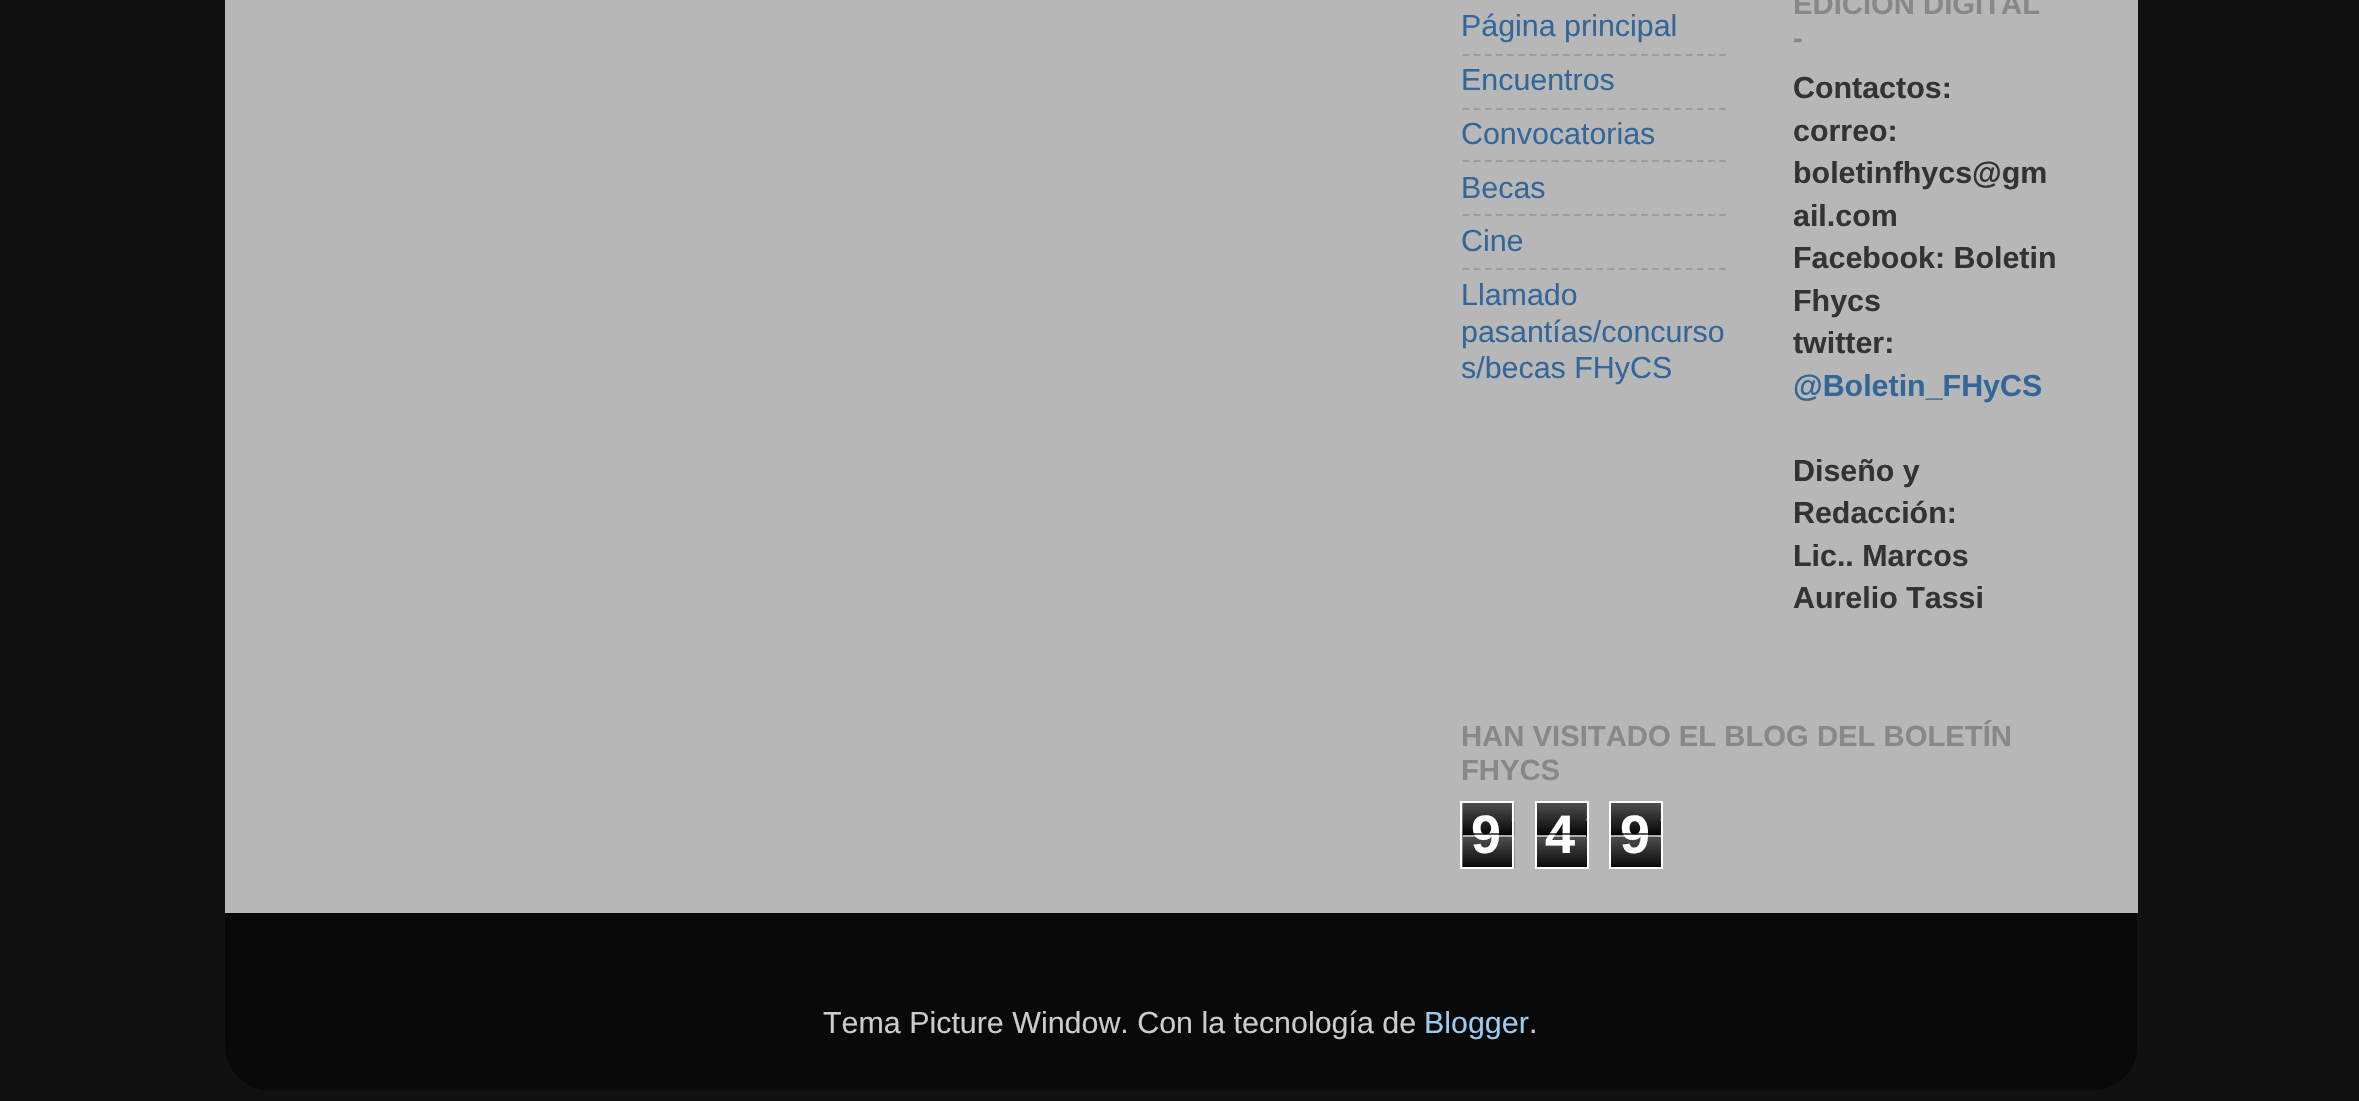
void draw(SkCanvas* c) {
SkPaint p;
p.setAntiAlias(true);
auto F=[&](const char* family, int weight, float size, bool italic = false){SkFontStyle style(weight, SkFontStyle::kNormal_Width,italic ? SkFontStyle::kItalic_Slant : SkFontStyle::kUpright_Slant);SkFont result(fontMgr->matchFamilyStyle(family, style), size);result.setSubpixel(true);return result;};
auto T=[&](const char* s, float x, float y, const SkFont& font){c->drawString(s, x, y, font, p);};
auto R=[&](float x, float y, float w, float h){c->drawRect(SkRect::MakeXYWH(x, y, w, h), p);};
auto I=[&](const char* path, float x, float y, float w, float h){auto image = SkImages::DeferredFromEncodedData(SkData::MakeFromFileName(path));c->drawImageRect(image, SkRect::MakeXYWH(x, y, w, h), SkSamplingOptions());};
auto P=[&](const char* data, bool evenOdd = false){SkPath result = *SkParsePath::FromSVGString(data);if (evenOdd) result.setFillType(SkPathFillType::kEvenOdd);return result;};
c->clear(0xff111111);
p.setColor(0xffb7b7b7);
R(225,0,1913,913);
auto f1 = F("Liberation Sans",400,30.4);
p.setColor(0xff336699);
T("Página principal",1461,36,f1);
p.setStroke(true);
p.setStrokeWidth(2.2);
p.setColor(0xff9c9c9c);
p.setPathEffect(SkDashPathEffect::Make({{6.75f,4.41f}}, 0));
c->drawPath(P("M1462.5 55h263.5"),p);
p.setPathEffect(nullptr);
p.setStroke(false);
p.setColor(0xff336699);
T("Encuentros",1461,90,f1);
p.setStroke(true);
p.setColor(0xff9c9c9c);
p.setPathEffect(SkDashPathEffect::Make({{6.75f,4.41f}}, 0));
c->drawPath(P("M1462.5 109h263.5"),p);
p.setPathEffect(nullptr);
p.setStroke(false);
p.setColor(0xff336699);
T("Convocatorias",1461,144,f1);
p.setStroke(true);
p.setColor(0xff9c9c9c);
p.setPathEffect(SkDashPathEffect::Make({{6.75f,4.41f}}, 0));
c->drawPath(P("M1462.5 161h263.5"),p);
p.setPathEffect(nullptr);
p.setStroke(false);
p.setColor(0xff336699);
T("Becas",1461,198,f1);
p.setStroke(true);
p.setColor(0xff9c9c9c);
p.setPathEffect(SkDashPathEffect::Make({{6.75f,4.41f}}, 0));
c->drawPath(P("M1462.5 215h263.5"),p);
p.setPathEffect(nullptr);
p.setStroke(false);
p.setColor(0xff336699);
T("Cine",1461,251,f1);
p.setStroke(true);
p.setColor(0xff9c9c9c);
p.setPathEffect(SkDashPathEffect::Make({{6.75f,4.41f}}, 0));
c->drawPath(P("M1462.5 269h263.5"),p);
p.setPathEffect(nullptr);
p.setStroke(false);
p.setColor(0xff336699);
T("Llamado",1461,305,f1);
T("pasantías/concurso",1461,342,f1);
T("s/becas FHyCS",1461,378,f1);
auto f2 = F("Liberation Sans",700,29.25);
p.setColor(0xff888888);
T("EDICIÓN DIGITAL",1793,14,f2);
T("-",1793,48,f2);
auto f3 = F("Liberation Sans",700,30.4);
p.setColor(0xff333333);
T("Contactos:",1793,98,f3);
T("correo:",1793,141,f3);
T("boletinfhycs@gm",1793,183,f3);
T("ail.com",1793,226,f3);
T("Facebook: Boletin",1793,268,f3);
T("Fhycs",1793,311,f3);
T("twitter:",1793,353,f3);
p.setColor(0xff336699);
T("@Boletin_FHyCS",1793,396,f3);
p.setColor(0xff333333);
T("Diseño y",1793,481,f3);
T("Redacción:",1793,523,f3);
T("Lic.. Marcos",1793,566,f3);
T("Aurelio Tassi",1793,608,f3);
p.setColor(0xff888888);
T("HAN VISITADO EL BLOG DEL BOLETÍN",1461,746,f2);
T("FHYCS",1461,780,f2);
I("1.png",1462,802,53,66);
p.setStroke(true);
p.setStrokeWidth(2);
p.setColor(0xffffffff);
c->drawRect(SkRect::MakeXYWH(1461,802,52,66),p);
auto f4 = F("Liberation Sans",700,54);
p.setStroke(false);
T("9",1471,853,f4);
p.setColor(0xa6000000);
R(1463,833,49,2);
p.setColor(0xa6ffffff);
R(1463,835,49,2);
I("2.png",1537,803,50,64);
p.setStroke(true);
p.setColor(0xffffffff);
c->drawRect(SkRect::MakeXYWH(1536,802,52,66),p);
p.setStroke(false);
T("4",1545,853,f4);
p.setColor(0xa6000000);
R(1537,833,49,2);
p.setColor(0xa6ffffff);
R(1537,835,49,2);
I("3.png",1611,803,50,64);
p.setStroke(true);
p.setColor(0xffffffff);
c->drawRect(SkRect::MakeXYWH(1610,802,52,66),p);
p.setStroke(false);
T("9",1620,853,f4);
p.setColor(0xa6000000);
R(1611,833,50,2);
p.setColor(0xa6ffffff);
R(1611,835,50,2);
I("4.png",225,913,1912,178);
p.setColor(0xffcccccc);
T("Tema Picture Window. Con la tecnología de",823,1033,f1);
p.setColor(0xff99ccee);
T("Blogger",1424,1033,f1);
p.setColor(0xffcccccc);
T(".",1529,1033,f1);
}
